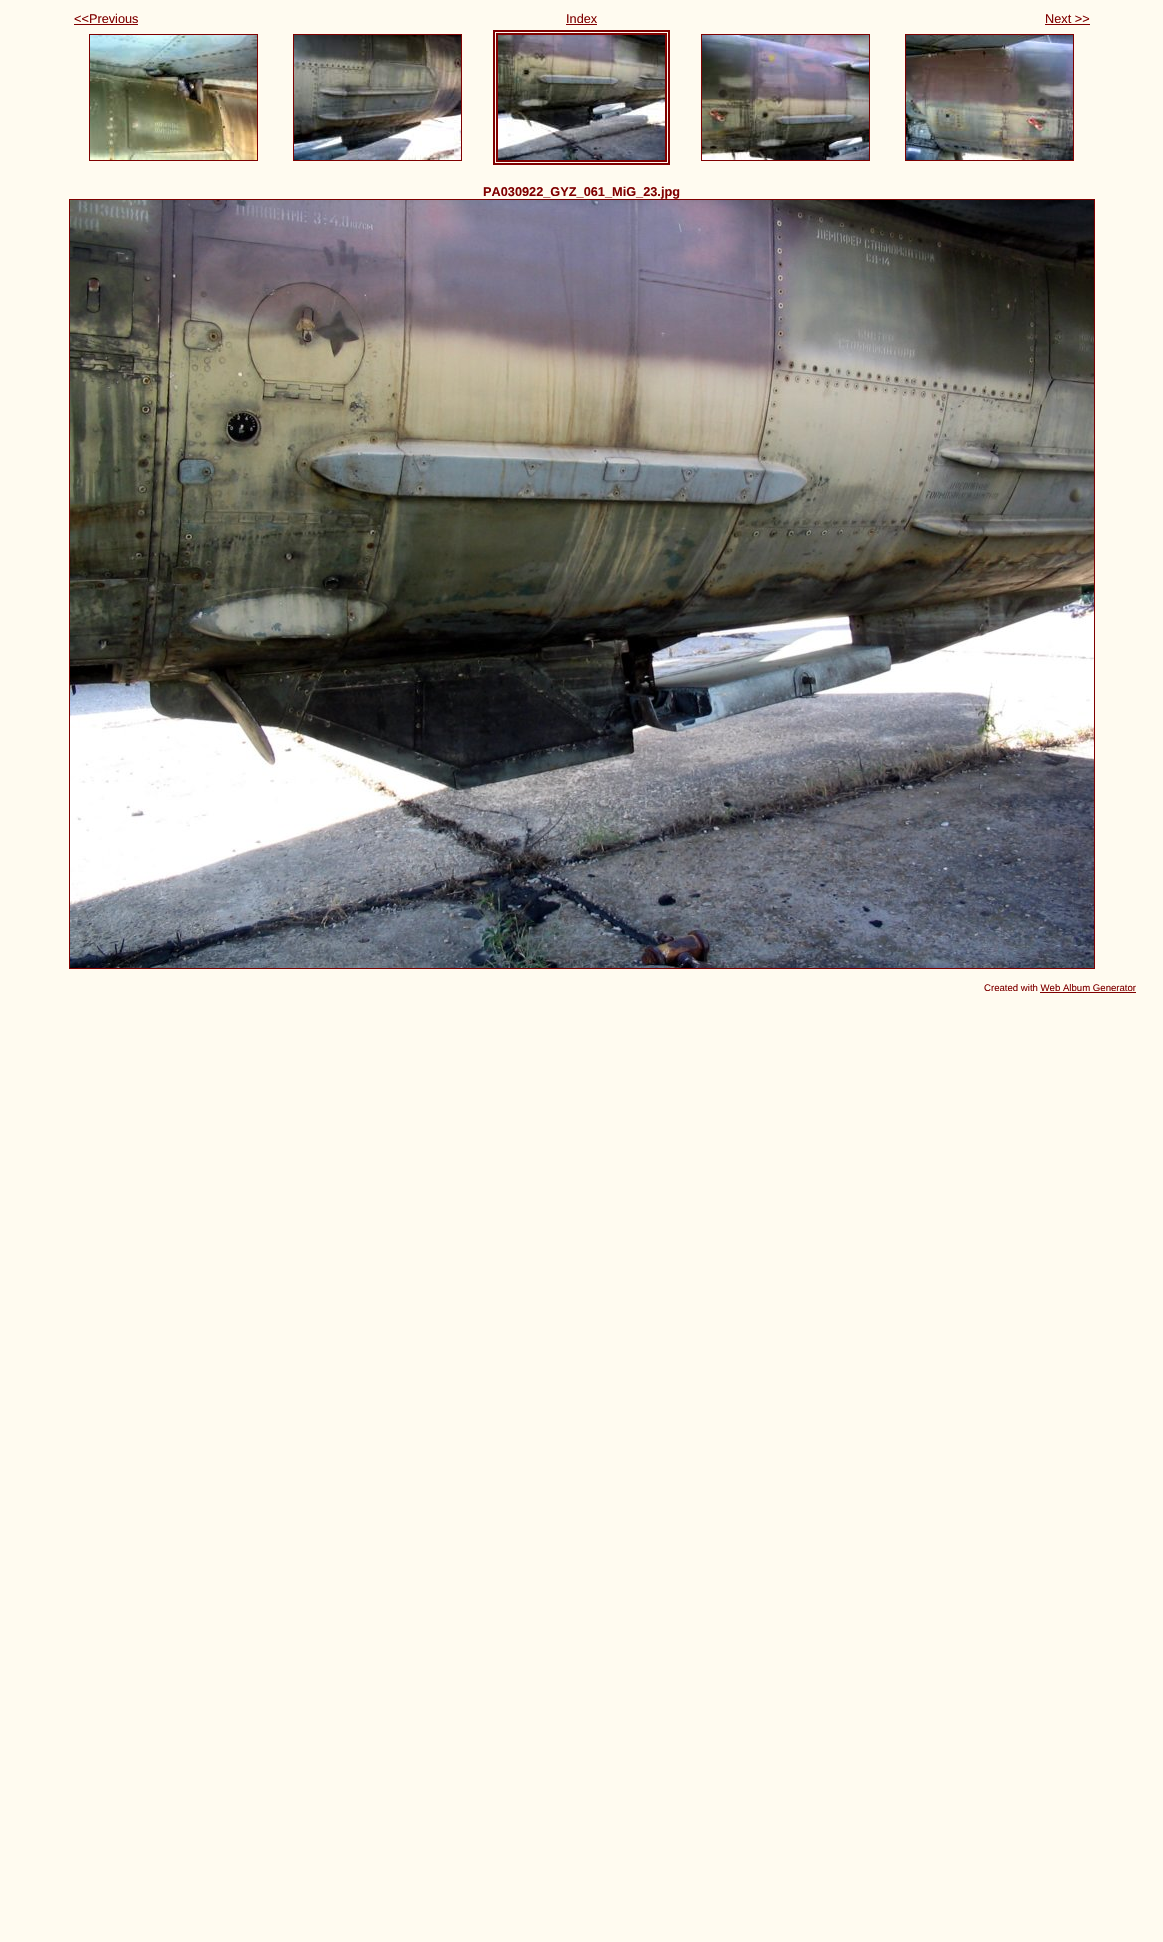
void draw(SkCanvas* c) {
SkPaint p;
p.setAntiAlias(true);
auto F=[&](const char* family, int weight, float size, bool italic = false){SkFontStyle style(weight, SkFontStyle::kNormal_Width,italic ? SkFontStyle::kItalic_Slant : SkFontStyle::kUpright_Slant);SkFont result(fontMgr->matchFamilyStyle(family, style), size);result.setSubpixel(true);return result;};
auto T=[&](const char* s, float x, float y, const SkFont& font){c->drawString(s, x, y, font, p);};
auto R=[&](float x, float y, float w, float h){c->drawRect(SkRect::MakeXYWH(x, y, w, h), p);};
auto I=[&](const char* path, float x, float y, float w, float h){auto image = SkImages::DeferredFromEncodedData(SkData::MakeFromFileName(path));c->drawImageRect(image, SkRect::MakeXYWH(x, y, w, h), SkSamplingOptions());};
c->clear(0xfffffbf0);
auto f1 = F("Liberation Sans",400,12.75);
p.setColor(0xff800000);
T("<<Previous",74,23,f1);
R(74,24,64,1);
T("Index",566,23,f1);
R(566,24,31,1);
T("Next >>",1045,23,f1);
R(1045,24,45,1);
p.setStroke(true);
p.setStrokeWidth(1);
c->drawRect(SkRect::MakeXYWH(89.5,34.5,168,126),p);
I("1.png",90,35,167,125);
c->drawRect(SkRect::MakeXYWH(293.5,34.5,168,126),p);
I("2.png",294,35,167,125);
p.setStrokeWidth(2);
c->drawRect(SkRect::MakeXYWH(494,31,175,133),p);
c->drawRect(SkRect::MakeXYWH(497,34,169,127),p);
I("3.png",498,35,167,125);
p.setStrokeWidth(1);
c->drawRect(SkRect::MakeXYWH(701.5,34.5,168,126),p);
I("4.png",702,35,167,125);
c->drawRect(SkRect::MakeXYWH(905.5,34.5,168,126),p);
I("5.png",906,35,167,125);
auto f2 = F("Liberation Sans",700,12.75);
p.setStroke(false);
T("PA030922_GYZ_061_MiG_23.jpg",483,196,f2);
p.setStroke(true);
c->drawRect(SkRect::MakeXYWH(69.5,199.5,1025,769),p);
I("6.png",70,200,1024,768);
auto f3 = F("Liberation Sans",400,9.6);
p.setStroke(false);
T("Created with Web Album Generator",984,991,f3);
R(1040,992,96,1);
}
